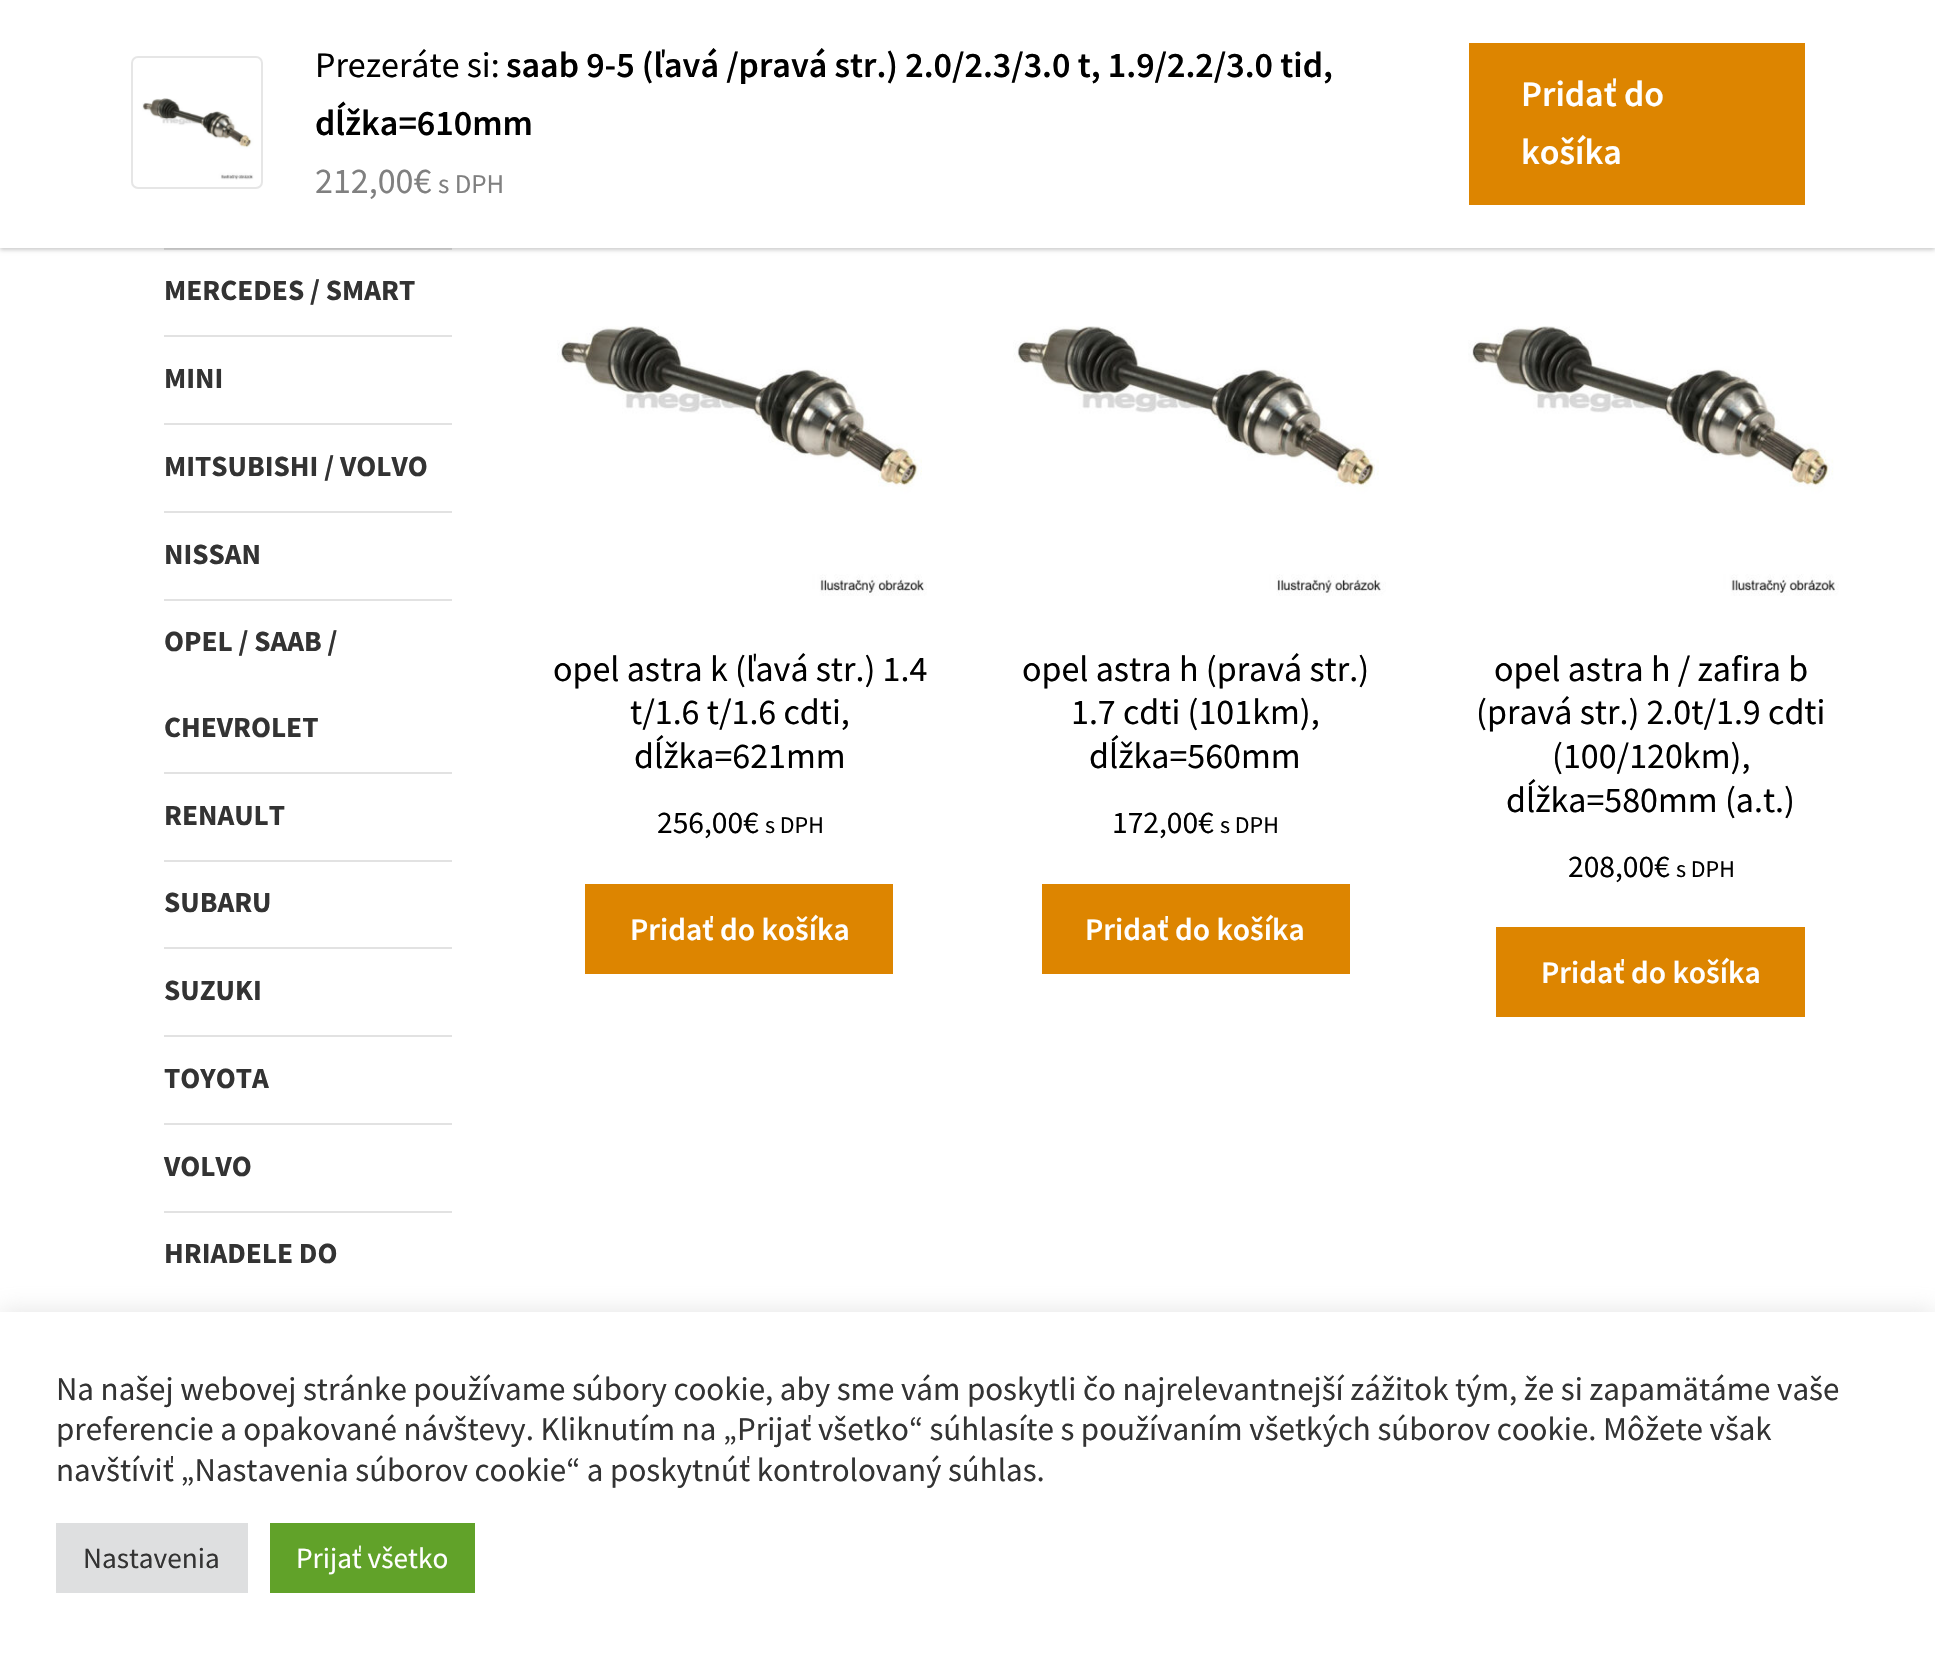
void draw(SkCanvas* c) {
SkPaint p;
p.setAntiAlias(true);
auto F=[&](const char* family, int weight, float size, bool italic = false){SkFontStyle style(weight, SkFontStyle::kNormal_Width,italic ? SkFontStyle::kItalic_Slant : SkFontStyle::kUpright_Slant);SkFont result(fontMgr->matchFamilyStyle(family, style), size);result.setSubpixel(true);return result;};
auto T=[&](const char* s, float x, float y, const SkFont& font){c->drawString(s, x, y, font, p);};
auto R=[&](float x, float y, float w, float h){c->drawRect(SkRect::MakeXYWH(x, y, w, h), p);};
auto I=[&](const char* path, float x, float y, float w, float h){auto image = SkImages::DeferredFromEncodedData(SkData::MakeFromFileName(path));c->drawImageRect(image, SkRect::MakeXYWH(x, y, w, h), SkSamplingOptions());};
c->clear(0xffffffff);
p.setColor(0xffe2e2e2);
R(164,248,288,2);
p.setColor(0x33000000);
p.setMaskFilter(SkMaskFilter::MakeBlur(kNormal_SkBlurStyle, 2));
c->drawRect(SkRect::MakeXYWH(0,2,1935,248),p);
p.setMaskFilter(nullptr);
p.setColor(0xffffffff);
R(0,0,1935,248);
p.setStroke(true);
p.setStrokeWidth(2);
p.setColor(0xffe6e6e6);
c->drawRoundRect(SkRect::MakeXYWH(132,57,130,131),6,6,p);
I("1.png",142,98,112,82);
auto f1 = F("Source Sans Pro",400,36);
p.setStroke(false);
p.setColor(0xff000000);
T("Prezeráte si:",315,77,f1);
auto f2 = F("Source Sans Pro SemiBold",600,36);
T("saab 9-5 (ľavá /pravá str.) 2.0/2.3/3.0 t, 1.9/2.2/3.0 tid,",506,77,f2);
T("dĺžka=610mm",315,135,f2);
p.setColor(0xff808080);
T("212,00€",315,193,f1);
auto f3 = F("Source Sans Pro",400,27);
T("s DPH",438,193,f3);
p.setColor(0xffdd8500);
R(1469,43,336,162);
p.setColor(0xffffffff);
T("Pridať do",1521,106,f2);
T("košíka",1521,164,f2);
p.setColor(0xffe2e2e2);
R(164,335,288,2);
auto f4 = F("Source Sans Pro",700,29.25);
p.setColor(0xff333333);
T("MERCEDES / SMART",164,300,f4);
p.setColor(0xffe2e2e2);
R(164,423,288,2);
p.setColor(0xff333333);
T("MINI",164,388,f4);
p.setColor(0xffe2e2e2);
R(164,511,288,2);
p.setColor(0xff333333);
T("MITSUBISHI / VOLVO",164,476,f4);
p.setColor(0xffe2e2e2);
R(164,599,288,2);
p.setColor(0xff333333);
T("NISSAN",164,564,f4);
p.setColor(0xffe2e2e2);
R(164,772,288,2);
p.setColor(0xff333333);
T("OPEL / SAAB /",164,651,f4);
T("CHEVROLET",164,737,f4);
p.setColor(0xffe2e2e2);
R(164,860,288,2);
p.setColor(0xff333333);
T("RENAULT",164,825,f4);
p.setColor(0xffe2e2e2);
R(164,947,288,2);
p.setColor(0xff333333);
T("SUBARU",164,912,f4);
p.setColor(0xffe2e2e2);
R(164,1035,288,2);
p.setColor(0xff333333);
T("SUZUKI",164,1000,f4);
p.setColor(0xffe2e2e2);
R(164,1123,288,2);
p.setColor(0xff333333);
T("TOYOTA",164,1088,f4);
p.setColor(0xffe2e2e2);
R(164,1211,288,2);
p.setColor(0xff333333);
T("VOLVO",164,1176,f4);
T("HRIADELE DO",164,1263,f4);
I("2.png",557,326,370,270);
p.setColor(0xff000000);
T("opel astra k (ľavá str.) 1.4",553,681,f1);
T("t/1.6 t/1.6 cdti,",630,724,f1);
T("dĺžka=621mm",634,768,f1);
auto f5 = F("Source Sans Pro",400,31.5);
T("256,00€",657,833,f5);
auto f6 = F("Source Sans Pro",400,24);
T("s DPH",765,833,f6);
p.setColor(0xffdd8500);
R(585,884,308,90);
auto f7 = F("Source Sans Pro SemiBold",600,31.5);
p.setColor(0xffffffff);
T("Pridať do košíka",630,940,f7);
I("3.png",1013,326,373,270);
p.setColor(0xff000000);
T("opel astra h (pravá str.)",1022,681,f1);
T("1.7 cdti (101km),",1071,724,f1);
T("dĺžka=560mm",1089,768,f1);
T("172,00€",1112,833,f5);
T("s DPH",1220,833,f6);
p.setColor(0xffdd8500);
R(1042,884,308,90);
p.setColor(0xffffffff);
T("Pridať do košíka",1085,940,f7);
I("4.png",1468,326,371,270);
p.setColor(0xff000000);
T("opel astra h / zafira b",1494,681,f1);
T("(pravá str.) 2.0t/1.9 cdti",1476,724,f1);
T("(100/120km),",1552,768,f1);
T("dĺžka=580mm (a.t.)",1506,812,f1);
T("208,00€",1568,877,f5);
T("s DPH",1676,877,f6);
p.setColor(0xffdd8500);
R(1496,927,309,90);
p.setColor(0xffffffff);
T("Pridať do košíka",1541,983,f7);
p.setColor(0x4dacabab);
p.setMaskFilter(SkMaskFilter::MakeBlur(kNormal_SkBlurStyle, 11));
c->drawRect(SkRect::MakeXYWH(0,1310,1935,348),p);
p.setMaskFilter(nullptr);
p.setColor(0xffffffff);
R(0,1312,1935,348);
auto f8 = F("Source Sans Pro",400,33);
p.setColor(0xff333333);
T("Na našej webovej stránke používame súbory cookie, aby sme vám poskytli čo najrelevantnejší zážitok tým, že si zapamätáme vaše",56,1400,f8);
T("preferencie a opakované návštevy. Kliknutím na „Prijať všetko“ súhlasíte s používaním všetkých súborov cookie. Môžete však",56,1440,f8);
T("navštíviť „Nastavenia súborov cookie“ a poskytnúť kontrolovaný súhlas.",56,1481,f8);
p.setColor(0xffdedfe0);
R(56,1523,192,70);
auto f9 = F("Source Sans Pro",400,29.25);
p.setColor(0xff333333);
T("Nastavenia",83,1568,f9);
p.setColor(0xff61a229);
R(270,1523,205,70);
p.setColor(0xffffffff);
T("Prijať všetko",296,1568,f9);
}
